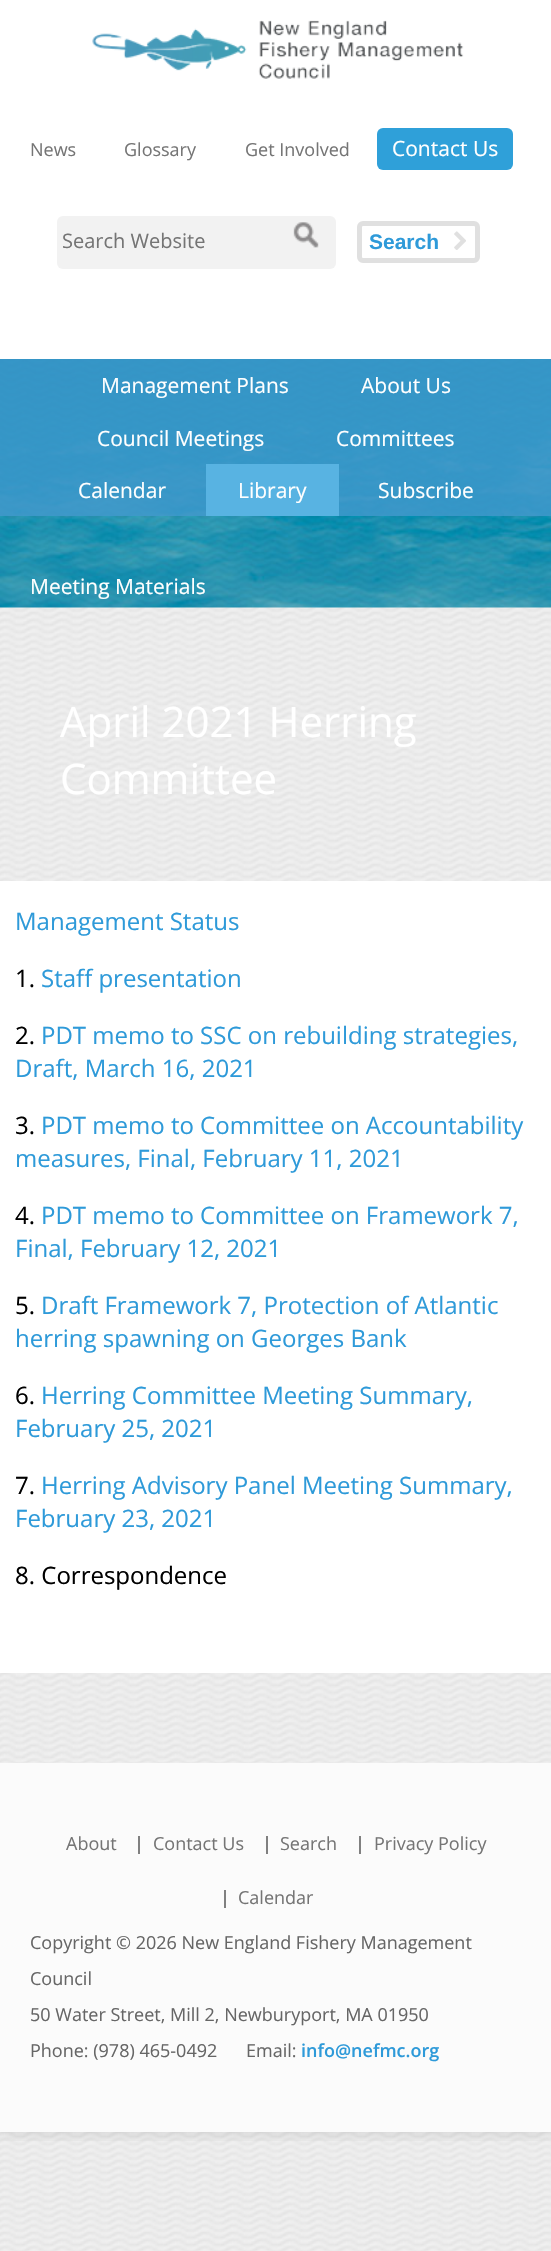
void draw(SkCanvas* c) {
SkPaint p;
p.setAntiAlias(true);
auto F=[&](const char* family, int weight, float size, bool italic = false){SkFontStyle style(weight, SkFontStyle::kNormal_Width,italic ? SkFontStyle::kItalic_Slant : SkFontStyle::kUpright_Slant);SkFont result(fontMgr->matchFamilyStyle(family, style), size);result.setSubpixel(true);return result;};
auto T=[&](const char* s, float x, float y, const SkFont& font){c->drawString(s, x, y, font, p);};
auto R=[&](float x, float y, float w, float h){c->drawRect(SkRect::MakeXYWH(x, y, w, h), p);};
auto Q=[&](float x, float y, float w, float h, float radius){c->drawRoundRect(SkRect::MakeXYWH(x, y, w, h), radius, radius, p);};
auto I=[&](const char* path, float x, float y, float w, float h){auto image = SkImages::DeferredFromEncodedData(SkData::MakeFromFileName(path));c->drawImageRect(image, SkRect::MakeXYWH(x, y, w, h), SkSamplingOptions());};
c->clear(0xffffffff);
I("1.png",0,607,551,1644);
c->save();
c->clipRect(SkRect::MakeXYWH(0,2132,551,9));
p.setColor(0x1a000000);
p.setMaskFilter(SkMaskFilter::MakeBlur(kNormal_SkBlurStyle, 7.5));
c->drawRect(SkRect::MakeXYWH(0,3,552,2132),p);
p.setMaskFilter(nullptr);
c->restore();
I("2.png",0,359,551,249);
I("3.png",92,20,372,59);
auto f1 = F("Open Sans",400,18);
p.setColor(0xff757575);
T("News",30,156,f1);
T("Glossary",124,156,f1);
T("Get Involved",245,156,f1);
p.setColor(0xff2fa0d9);
Q(377,128,136,42,6);
auto f2 = F("Open Sans",400,21);
p.setColor(0xffffffff);
T("Contact Us",392,156,f2);
p.setColor(0xfff2f2f2);
Q(57,216,279,53,6);
I("4.png",293,222,26,26);
auto f3 = F("Open Sans",400,20);
p.setColor(0xff757575);
T("Search Website",62,248,f3);
p.setStroke(true);
p.setStrokeWidth(5);
p.setColor(0xffe0e0e0);
c->drawRoundRect(SkRect::MakeXYWH(359.5,223.5,118,37),3.5,3.5,p);
auto f4 = F("Liberation Sans",700,21);
p.setStroke(false);
p.setColor(0xff2e9ad9);
T("Search",369,249,f4);
I("5.png",454,231,12,19);
p.setColor(0xcc4298cd);
R(0,359,551,157);
p.setColor(0xffffffff);
T("Management Plans",101,393,f2);
T("About Us",361,393,f2);
T("Council Meetings",97,446,f2);
T("Committees",336,446,f2);
T("Calendar",78,498,f2);
p.setColor(0xff58b3e2);
R(206,464,133,52);
p.setColor(0xffffffff);
T("Library",238,498,f2);
T("Subscribe",378,498,f2);
T("Meeting Materials",30,594,f2);
auto f5 = F("Open Sans",400,42);
T("April 2021 Herring",60,737,f5);
T("Committee",60,794,f5);
R(0,881,551,792);
auto f6 = F("Open Sans",400,24);
p.setColor(0xff2e9ad9);
T("Management Status",15,930,f6);
p.setColor(0xff000000);
T("1.",15,987,f6);
p.setColor(0xff2e9ad9);
T("Staff presentation",41,987,f6);
p.setColor(0xff000000);
T("2.",15,1044,f6);
p.setColor(0xff2e9ad9);
T("PDT memo to SSC on rebuilding strategies,",41,1044,f6);
T("Draft, March 16, 2021",15,1077,f6);
p.setColor(0xff000000);
T("3.",15,1134,f6);
p.setColor(0xff2e9ad9);
T("PDT memo to Committee on Accountability",41,1134,f6);
T("measures, Final, February 11, 2021",15,1167,f6);
p.setColor(0xff000000);
T("4.",15,1224,f6);
p.setColor(0xff2e9ad9);
T("PDT memo to Committee on Framework 7,",41,1224,f6);
T("Final, February 12, 2021",15,1257,f6);
p.setColor(0xff000000);
T("5.",15,1314,f6);
p.setColor(0xff2e9ad9);
T("Draft Framework 7, Protection of Atlantic",41,1314,f6);
T("herring spawning on Georges Bank",15,1347,f6);
p.setColor(0xff000000);
T("6.",15,1404,f6);
p.setColor(0xff2e9ad9);
T("Herring Committee Meeting Summary,",41,1404,f6);
T("February 25, 2021",15,1437,f6);
p.setColor(0xff000000);
T("7.",15,1494,f6);
p.setColor(0xff2e9ad9);
T("Herring Advisory Panel Meeting Summary,",41,1494,f6);
T("February 23, 2021",15,1527,f6);
p.setColor(0xff000000);
T("8. Correspondence",15,1584,f6);
I("6.png",0,1673,551,90);
p.setColor(0xfffbfbfb);
R(0,1763,551,369);
p.setColor(0xff757575);
T("About",66,1850,f1);
p.setColor(0xff808080);
R(138,1836,2,18);
p.setColor(0xff757575);
T("Contact Us",153,1850,f1);
p.setColor(0xff808080);
R(266,1836,2,18);
p.setColor(0xff757575);
T("Search",280,1850,f1);
p.setColor(0xff808080);
R(359,1836,2,18);
p.setColor(0xff757575);
T("Privacy Policy",374,1850,f1);
p.setColor(0xff808080);
R(224,1890,2,18);
p.setColor(0xff757575);
T("Calendar",238,1904,f1);
p.setColor(0xff666666);
T("Copyright © 2026 New England Fishery Management",30,1949,f1);
T("Council",30,1985,f1);
T("50 Water Street, Mill 2, Newburyport, MA 01950",30,2021,f1);
T("Phone: (978) 465-0492",30,2057,f1);
T("Email:",246,2057,f1);
auto f7 = F("Open Sans",600,18);
p.setColor(0xff2e9ad9);
T("info@nefmc.org",301,2057,f7);
}
